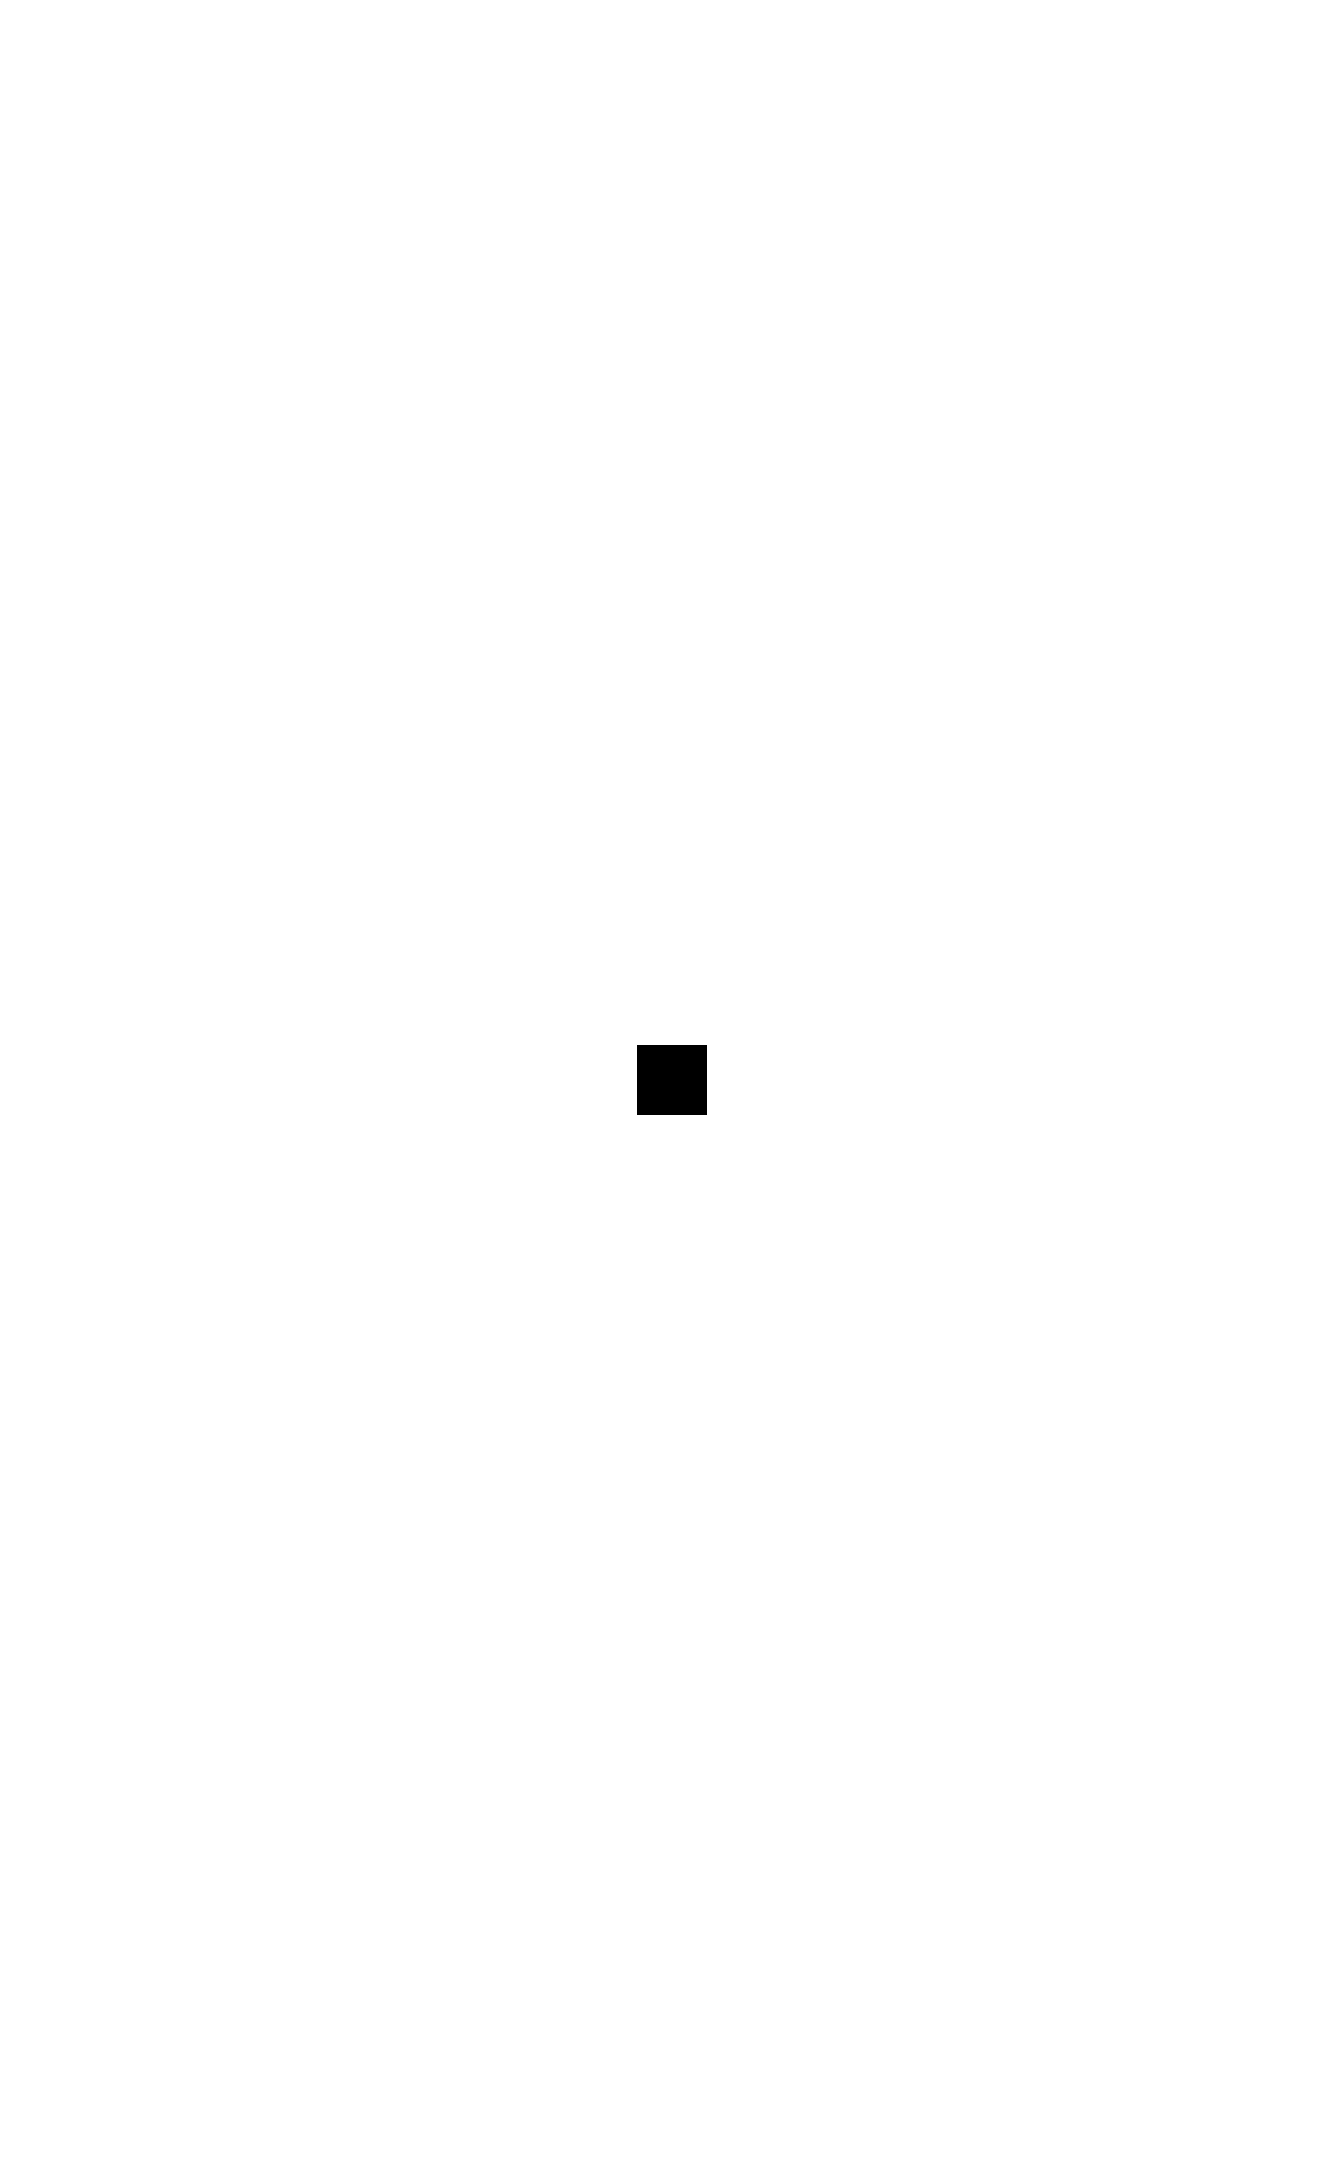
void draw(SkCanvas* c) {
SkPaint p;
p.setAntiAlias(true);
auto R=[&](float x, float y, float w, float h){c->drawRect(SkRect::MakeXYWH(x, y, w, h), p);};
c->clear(0xffffffff);
p.setColor(0xff000000);
R(637,1045,70,70);
}
